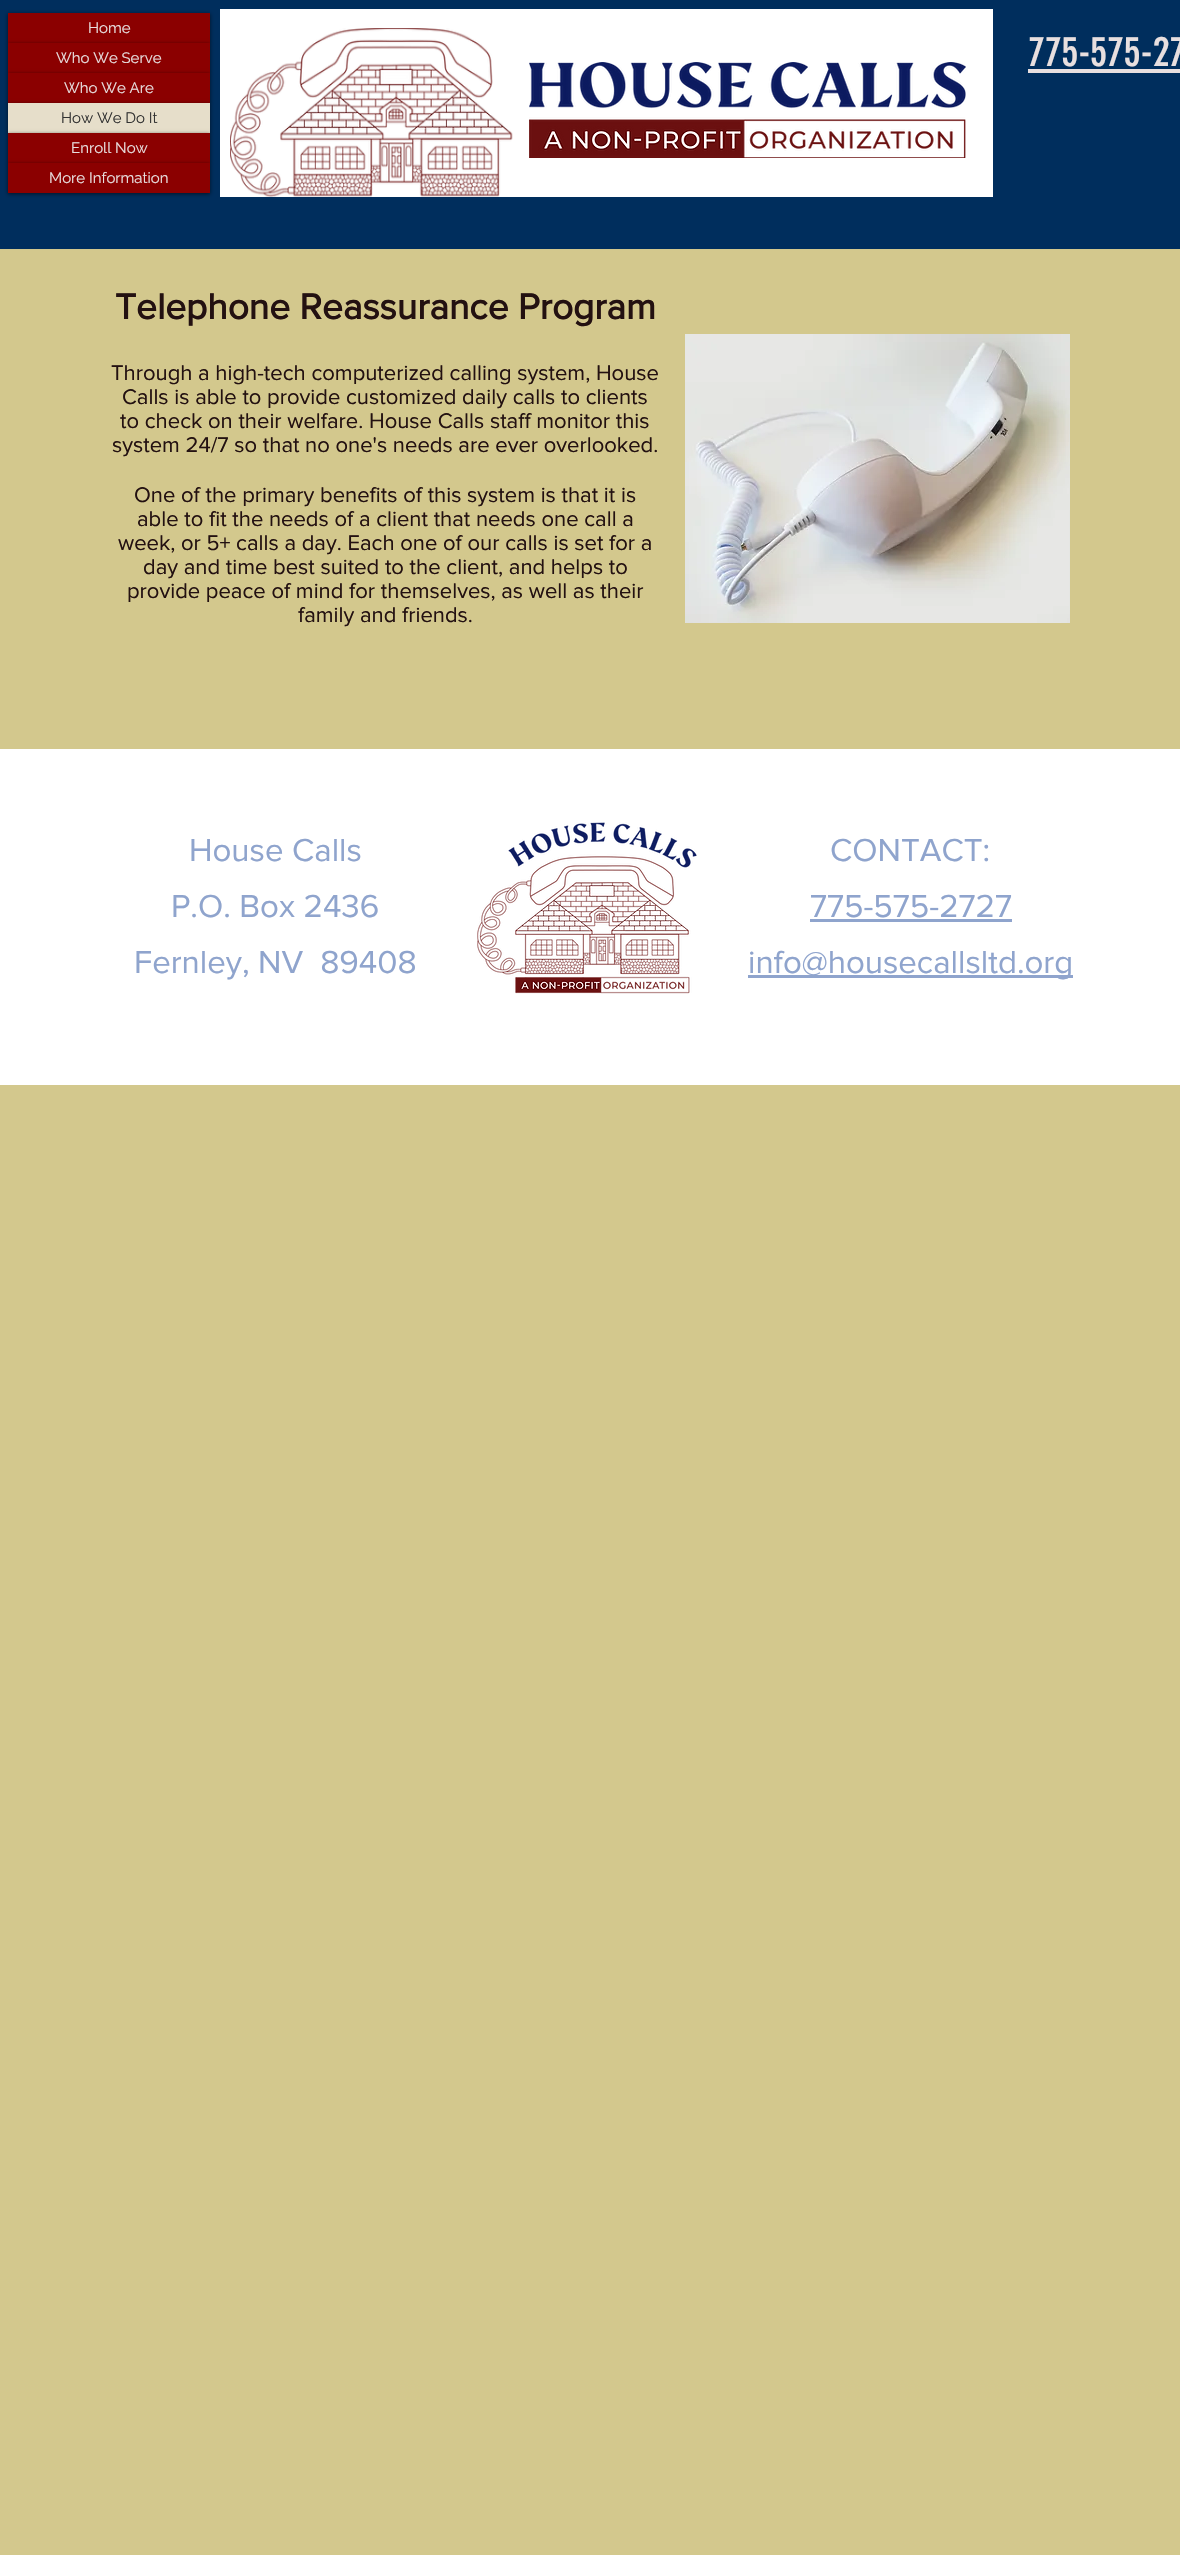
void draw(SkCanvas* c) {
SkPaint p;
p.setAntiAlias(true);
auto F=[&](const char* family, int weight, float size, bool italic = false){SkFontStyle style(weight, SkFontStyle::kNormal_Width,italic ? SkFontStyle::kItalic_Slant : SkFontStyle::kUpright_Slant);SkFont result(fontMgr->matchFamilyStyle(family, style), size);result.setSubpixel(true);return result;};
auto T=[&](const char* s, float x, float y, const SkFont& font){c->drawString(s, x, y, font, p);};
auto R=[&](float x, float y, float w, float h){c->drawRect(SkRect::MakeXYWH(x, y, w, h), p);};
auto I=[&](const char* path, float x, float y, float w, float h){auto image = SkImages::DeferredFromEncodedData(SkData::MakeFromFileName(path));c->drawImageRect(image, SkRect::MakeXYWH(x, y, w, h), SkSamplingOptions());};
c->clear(0xffd3c88d);
p.setColor(0xff002e5d);
R(0,0,1180,249);
p.setColor(0x99000000);
p.setMaskFilter(SkMaskFilter::MakeBlur(kNormal_SkBlurStyle, 2));
c->drawRect(SkRect::MakeXYWH(8,14,202,30),p);
p.setMaskFilter(nullptr);
p.setColor(0xff8b0000);
R(8,13,202,30);
auto f1 = F("Raleway",400,15);
p.setColor(0xffe8dfdf);
T("Home",88,33,f1);
p.setColor(0x99000000);
p.setMaskFilter(SkMaskFilter::MakeBlur(kNormal_SkBlurStyle, 2));
c->drawRect(SkRect::MakeXYWH(8,44,202,30),p);
p.setMaskFilter(nullptr);
p.setColor(0xff8b0000);
R(8,43,202,30);
p.setColor(0xffe8dfdf);
T("Who We Serve",56,63,f1);
p.setColor(0x99000000);
p.setMaskFilter(SkMaskFilter::MakeBlur(kNormal_SkBlurStyle, 2));
c->drawRect(SkRect::MakeXYWH(8,74,202,30),p);
p.setMaskFilter(nullptr);
p.setColor(0xff8b0000);
R(8,73,202,30);
p.setColor(0xffe8dfdf);
T("Who We Are",64,93,f1);
p.setColor(0x99000000);
p.setMaskFilter(SkMaskFilter::MakeBlur(kNormal_SkBlurStyle, 2));
c->drawRect(SkRect::MakeXYWH(8,104,202,30),p);
p.setMaskFilter(nullptr);
p.setColor(0xffe6deca);
R(8,103,202,30);
p.setColor(0xff323232);
T("How We Do It",61,123,f1);
p.setColor(0x99000000);
p.setMaskFilter(SkMaskFilter::MakeBlur(kNormal_SkBlurStyle, 2));
c->drawRect(SkRect::MakeXYWH(8,134,202,30),p);
p.setMaskFilter(nullptr);
p.setColor(0xff8b0000);
R(8,133,202,30);
p.setColor(0xffe8dfdf);
T("Enroll Now",71,153,f1);
p.setColor(0x99000000);
p.setMaskFilter(SkMaskFilter::MakeBlur(kNormal_SkBlurStyle, 2));
c->drawRect(SkRect::MakeXYWH(8,164,202,30),p);
p.setMaskFilter(nullptr);
p.setColor(0xff8b0000);
R(8,163,202,30);
p.setColor(0xffe8dfdf);
T("More Information",49,183,f1);
p.setColor(0xffffffff);
R(220,9,773,188);
I("1.png",230,28,283,169);
auto f2 = F("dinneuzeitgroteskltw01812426",400,41);
p.setColor(0xffe8dfdf);
T("775-575-27",1028,66,f2);
R(1028,69,152,4);
I("2.png",529,62,437,96);
auto f3 = F("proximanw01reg",700,37);
p.setColor(0xff231111);
T("Telephone Reassurance Program",115,319,f3);
auto f4 = F("proximanw01reg",400,22);
T("Through a high-tech computerized calling system, House",111,380,f4);
T("Calls is able to provide customized daily calls to clients",122,404,f4);
T("to check on their welfare. House Calls staff monitor this",120,428,f4);
T("system 24/7 so that no one's needs are ever overlooked.",112,452,f4);
T("One of the primary benefits of this system is that it is",134,502,f4);
T("able to fit the needs of a client that needs one call a",137,526,f4);
T("week, or 5+ calls a day. Each one of our calls is set for a",118,550,f4);
T("day and time best suited to the client, and helps to",143,574,f4);
T("provide peace of mind for themselves, as well as their",127,598,f4);
T("family and friends.",298,622,f4);
I("3.png",685,334,385,289);
p.setColor(0xffffffff);
R(0,749,1180,336);
auto f5 = F("proximanw01reg",400,33);
p.setColor(0xff8fa4cd);
T("House Calls",189,861,f5);
T("P.O. Box 2436",171,917,f5);
T("Fernley, NV  89408",134,973,f5);
I("4.png",477,822,220,172);
T("CONTACT:",830,861,f5);
T("775-575-2727",810,917,f5);
R(810,919,202,3);
R(748,975,325,3);
T("info@housecallsltd.org",748,973,f5);
}
